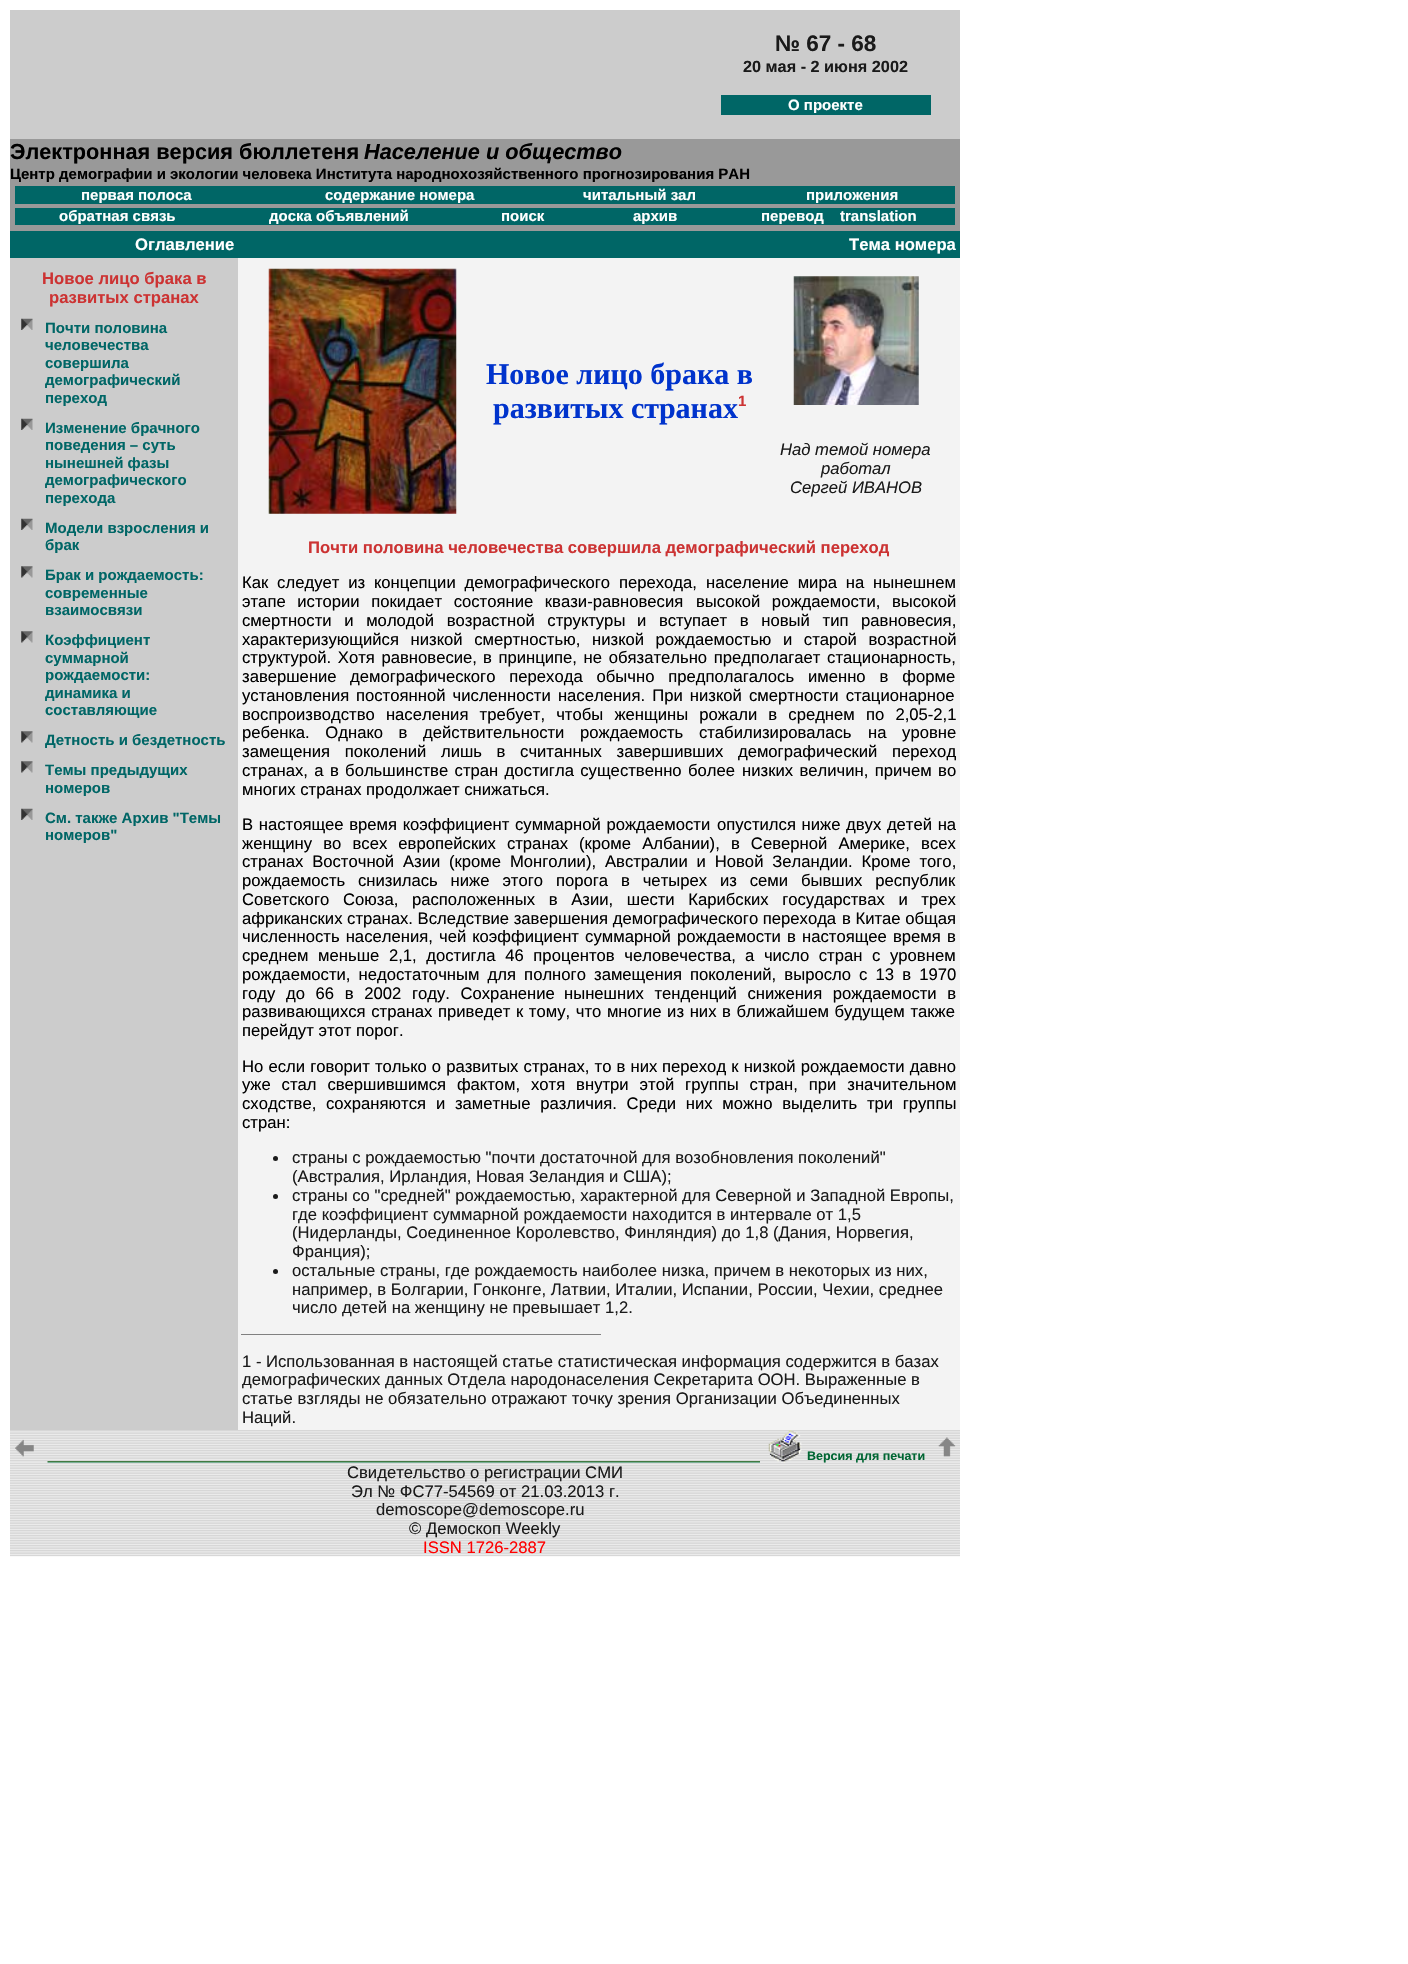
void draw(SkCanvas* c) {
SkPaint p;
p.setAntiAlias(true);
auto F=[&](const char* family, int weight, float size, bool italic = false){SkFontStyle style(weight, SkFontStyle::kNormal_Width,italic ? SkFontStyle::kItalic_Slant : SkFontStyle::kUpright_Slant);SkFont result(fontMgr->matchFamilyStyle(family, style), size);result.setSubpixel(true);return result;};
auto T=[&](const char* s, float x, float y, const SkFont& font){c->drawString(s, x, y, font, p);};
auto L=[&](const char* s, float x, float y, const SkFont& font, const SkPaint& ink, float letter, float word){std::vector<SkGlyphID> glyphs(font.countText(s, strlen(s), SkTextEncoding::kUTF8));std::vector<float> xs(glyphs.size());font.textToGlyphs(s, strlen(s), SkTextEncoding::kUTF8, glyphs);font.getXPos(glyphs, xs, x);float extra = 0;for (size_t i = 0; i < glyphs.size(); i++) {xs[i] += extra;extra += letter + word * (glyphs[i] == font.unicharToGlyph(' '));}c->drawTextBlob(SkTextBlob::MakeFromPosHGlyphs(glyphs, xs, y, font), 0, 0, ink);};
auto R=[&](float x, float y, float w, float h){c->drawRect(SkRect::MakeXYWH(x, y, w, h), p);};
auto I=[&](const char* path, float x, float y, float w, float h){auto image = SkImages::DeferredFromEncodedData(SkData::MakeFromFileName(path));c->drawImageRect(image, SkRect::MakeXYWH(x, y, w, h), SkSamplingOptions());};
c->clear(0xffffffff);
p.setColor(0xffcccccc);
R(10,10,950,129);
auto f1 = F("Liberation Sans",700,22.5);
p.setColor(0xff1a1a1a);
T("№ 67 - 68",775,51,f1);
auto f2 = F("Liberation Sans",700,16.25);
T("20 мая - 2 июня 2002",743,72,f2);
p.setColor(0xff006666);
R(721,95,210,20);
auto f3 = F("Liberation Sans",700,15);
p.setColor(0xffffffff);
T("О проекте",788,110,f3);
p.setColor(0xff999999);
R(10,139,950,92);
auto f4 = F("Liberation Sans",700,21.7);
p.setColor(0xff000000);
T("Электронная версия бюллетеня",10,159,f4);
auto f5 = F("Liberation Sans",700,21.7,true);
T("Население и общество",364,159,f5);
T("Центр демографии и экологии человека Института народнохозяйственного прогнозирования РАН",10,179,f3);
p.setColor(0xff006666);
R(15,186,940,18);
p.setColor(0xffffffff);
T("первая полоса",81,200,f3);
T("содержание номера",325,200,f3);
T("читальный зал",583,200,f3);
T("приложения",806,200,f3);
p.setColor(0xff006666);
R(15,208,940,17);
p.setColor(0xffffffff);
T("обратная связь",59,221,f3);
T("доска объявлений",269,221,f3);
T("поиск",501,221,f3);
T("архив",633,221,f3);
T("перевод",761,221,f3);
T("translation",840,221,f3);
p.setColor(0xfff3f3f3);
R(238,258,722,1172);
p.setColor(0xff006666);
R(10,231,950,27);
auto f6 = F("Liberation Sans",700,16.65);
p.setColor(0xffffffff);
T("Оглавление",135,250,f6);
T("Тема номера",849,250,f6);
p.setColor(0xffcccccc);
R(10,258,228,1172);
p.setColor(0xffcc3333);
T("Новое лицо брака в",42,284,f6);
T("развитых странах",49,303,f6);
I("1.png",21,318,12,12);
p.setColor(0xff006666);
T("Почти половина",45,333,f3);
T("человечества",45,350,f3);
T("совершила",45,368,f3);
T("демографический",45,385,f3);
T("переход",45,403,f3);
I("1.png",21,418,12,12);
T("Изменение брачного",45,433,f3);
T("поведения – суть",45,450,f3);
T("нынешней фазы",45,468,f3);
T("демографического",45,485,f3);
T("перехода",45,503,f3);
I("1.png",21,518,12,12);
T("Модели взросления и",45,533,f3);
T("брак",45,550,f3);
I("2.png",21,566,12,12);
T("Брак и рождаемость:",45,580,f3);
T("современные",45,598,f3);
T("взаимосвязи",45,615,f3);
I("2.png",21,631,12,12);
T("Коэффициент",45,645,f3);
T("суммарной",45,663,f3);
T("рождаемости:",45,680,f3);
T("динамика и",45,698,f3);
T("составляющие",45,715,f3);
I("2.png",21,731,12,12);
T("Детность и бездетность",45,745,f3);
I("2.png",21,761,12,12);
T("Темы предыдущих",45,775,f3);
T("номеров",45,793,f3);
I("1.png",21,808,12,12);
T("См. также Архив \"Темы",45,823,f3);
T("номеров\"",45,840,f3);
I("3.png",268,268,189,246);
auto f7 = F("Liberation Serif",700,30);
p.setColor(0xff0033cc);
T("Новое лицо брака в",486,384,f7);
p.setColor(0xffcc3333);
T("1",738,406,f3);
p.setColor(0xff0033cc);
T("развитых странах",493,418,f7);
I("4.png",793,276,126,129);
auto f8 = F("Liberation Sans",400,16.65,true);
p.setColor(0xff1a1a1a);
T("Над темой номера",780,455,f8);
T("работал",821,474,f8);
T("Сергей ИВАНОВ",790,493,f8);
p.setColor(0xffcc3333);
T("Почти половина человечества совершила демографический переход",308,553,f6);
auto f9 = F("Liberation Sans",400,16.65);
p.setColor(0xff000000);
L("Как следует из концепции демографического перехода,",242,588,f9,p,0,4.25);
L("население мира на нынешнем",706,588,f9,p,0,4.25);
L("этапе истории покидает состояние квази-равновесия",242,607,f9,p,0,7);
L("высокой рождаемости, высокой",696,607,f9,p,0,7);
L("смертности и молодой возрастной структуры",242,626,f9,p,0,8);
L("и вступает в новый тип равновесия,",637,626,f9,p,0,8);
L("характеризующийся низкой смертностью,",242,645,f9,p,0,7);
L("низкой рождаемостью и старой возрастной",592,645,f9,p,0,7);
L("структурой. Хотя равновесие,",242,663,f9,p,0,2);
L("в принципе, не обязательно предполагает стационарность,",483,663,f9,p,0,2);
T("завершение",242,682,f9);
L("демографического перехода обычно предполагалось именно в форме",350,682,f9,p,0,9.25);
T("установления",242,701,f9);
L("постоянной численности населения. При низкой смертности стационарное",356,701,f9,p,0,2.5);
L("воспроизводство населения требует, чтобы женщины рожали в среднем",242,720,f9,p,0,6.5);
L("по 2,05-2,1",866,720,f9,p,0,6.5);
L("ребенка. Однако в действительности рождаемость стабилизировалась",242,738,f9,p,0,11);
L("на уровне",868,738,f9,p,0,11);
L("замещения поколений лишь в считанных завершивших демографический",242,757,f9,p,0,10);
T("переход",892,757,f9);
L("странах, а в большинстве стран достигла существенно более",242,776,f9,p,0,1.75);
L("низких величин, причем во",742,776,f9,p,0,1.75);
T("многих странах продолжает снижаться.",242,795,f9);
L("В настоящее время коэффициент суммарной рождаемости",242,830,f9,p,0,1);
L("опустился ниже двух детей на",717,830,f9,p,0,1);
L("женщину во всех европейских странах",242,849,f9,p,0,6.5);
L("(кроме Албании), в Северной Америке, всех",579,849,f9,p,0,6.5);
L("странах Восточной Азии",242,867,f9,p,0,4.25);
L("(кроме Монголии), Австралии и Новой Зеландии. Кроме того,",449,867,f9,p,0,4.25);
T("рождаемость",242,886,f9);
L("снизилась ниже этого порога в четырех из семи бывших республик",358,886,f9,p,0,8.25);
T("Советского",242,905,f9);
L("Союза, расположенных в Азии, шести Карибских государствах и трех",343,905,f9,p,0,9);
T("африканских странах. Вследствие завершения демографического перехода",242,924,f9);
T("в Китае общая",842,924,f9);
L("численность населения, чей коэффициент суммарной рождаемости",242,942,f9,p,0,1.5);
L("в настоящее время в",787,942,f9,p,0,1.5);
L("среднем меньше 2,1, достигла 46 процентов человечества,",242,961,f9,p,0,5);
L("а число стран с уровнем",745,961,f9,p,0,5);
L("рождаемости, недостаточным для полного замещения",242,980,f9,p,0,3.5);
L("поколений, выросло с 13 в 1970",690,980,f9,p,0,3.5);
L("году до 66 в 2002 году. Сохранение",242,999,f9,p,0,6);
L("нынешних тенденций снижения рождаемости в",564,999,f9,p,0,6);
L("развивающихся странах",242,1017,f9,p,0,1);
L("приведет к тому, что многие из них в ближайшем будущем также",438,1017,f9,p,0,1);
T("перейдут этот порог.",242,1036,f9);
L("Но если говорит только о развитых странах, то в них",242,1072,f9,p,0,.5);
L("переход к низкой рождаемости давно",662,1072,f9,p,0,.5);
L("уже стал свершившимся фактом,",242,1090,f9,p,0,6.25);
L("хотя внутри этой группы стран, при значительном",531,1090,f9,p,0,6.25);
L("сходстве, сохраняются",242,1109,f9,p,0,5);
L("и заметные различия. Среди них можно выделить три группы",436,1109,f9,p,0,5);
T("стран:",242,1128,f9);
p.setColor(0xff1a1a1a);
c->drawCircle(275.5,1158.5,2.5,p);
T("страны с рождаемостью \"почти достаточной для возобновления поколений\"",292,1163,f9);
T("(Австралия, Ирландия, Новая Зеландия и США);",292,1182,f9);
c->drawCircle(275.5,1196.5,2.5,p);
T("страны со \"средней\" рождаемостью, характерной для Северной и Западной Европы,",292,1201,f9);
T("где коэффициент суммарной рождаемости находится в интервале от 1,5",292,1220,f9);
T("(Нидерланды, Соединенное Королевство, Финляндия) до 1,8 (Дания, Норвегия,",292,1238,f9);
T("Франция);",292,1257,f9);
c->drawCircle(275.5,1271.5,2.5,p);
T("остальные страны, где рождаемость наиболее низка, причем в некоторых из них,",292,1276,f9);
T("например, в Болгарии, Гонконге, Латвии, Италии, Испании, России, Чехии, среднее",292,1295,f9);
T("число детей на женщину не превышает 1,2.",292,1313,f9);
p.setColor(0xff808080);
R(241,1334,360,1);
p.setColor(0xff1a1a1a);
T("1 - Использованная в настоящей статье статистическая информация содержится в базах",242,1367,f9);
T("демографических данных Отдела народонаселения Секретарита ООН. Выраженные в",242,1385,f9);
T("статье взгляды не обязательно отражают точку зрения Организации Объединенных",242,1404,f9);
T("Наций.",242,1423,f9);
I("5.png",10,1430,950,33);
I("6.png",15,1439,19,18);
I("10.png",10,1462,950,95);
I("7.png",47,1461,713,2);
I("8.png",768,1430,34,33);
auto f10 = F("Liberation Sans",700,12.5);
p.setColor(0xff006633);
T("Версия для печати",807,1460,f10);
I("9.png",938,1437,18,20);
p.setColor(0xff1a1a1a);
T("Свидетельство о регистрации СМИ",347,1478,f9);
T("Эл № ФС77-54569 от 21.03.2013 г.",351,1497,f9);
T("demoscope@demoscope.ru",376,1515,f9);
T("© Демоскоп Weekly",409,1534,f9);
p.setColor(0xffff0000);
T("ISSN 1726-2887",423,1553,f9);
}
